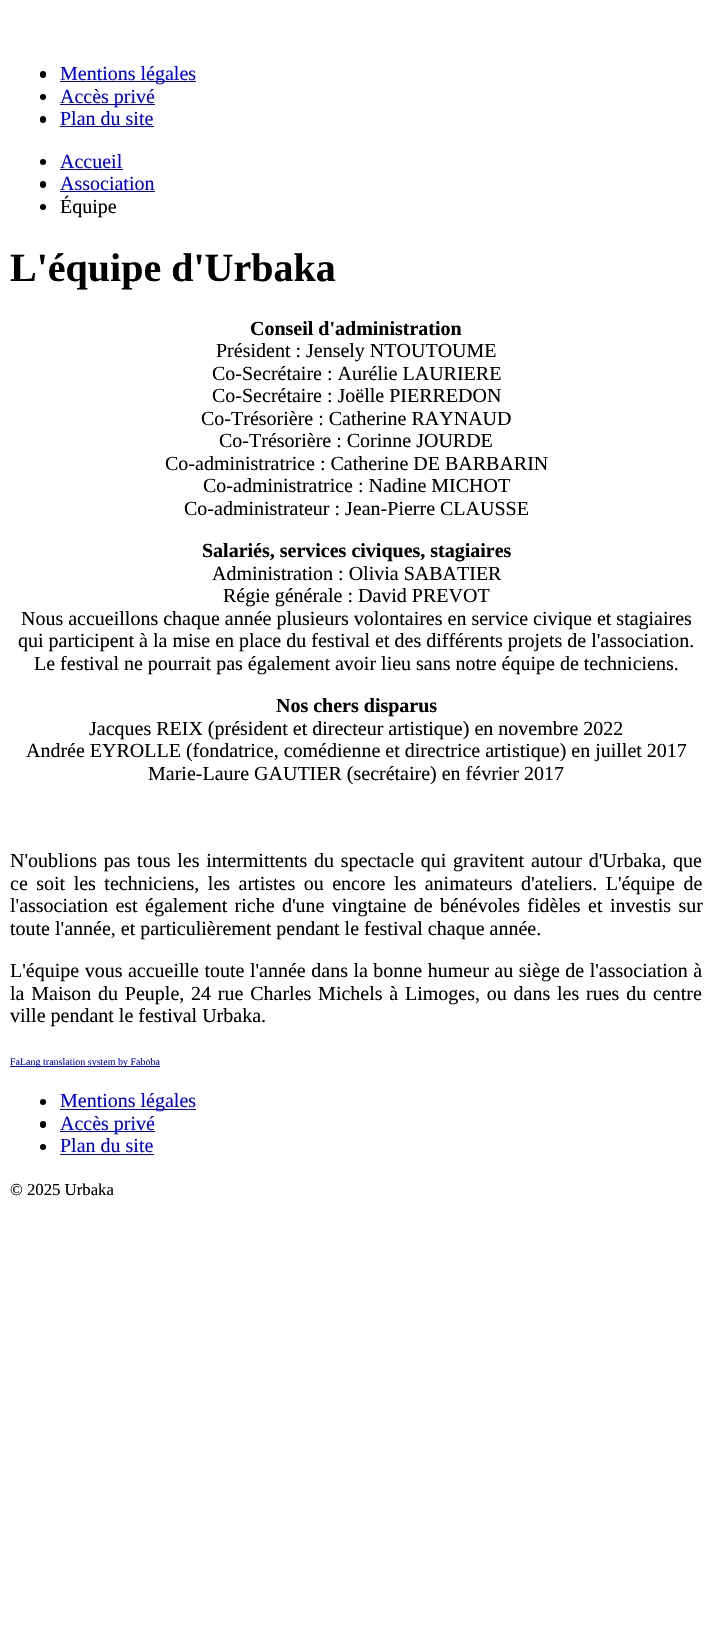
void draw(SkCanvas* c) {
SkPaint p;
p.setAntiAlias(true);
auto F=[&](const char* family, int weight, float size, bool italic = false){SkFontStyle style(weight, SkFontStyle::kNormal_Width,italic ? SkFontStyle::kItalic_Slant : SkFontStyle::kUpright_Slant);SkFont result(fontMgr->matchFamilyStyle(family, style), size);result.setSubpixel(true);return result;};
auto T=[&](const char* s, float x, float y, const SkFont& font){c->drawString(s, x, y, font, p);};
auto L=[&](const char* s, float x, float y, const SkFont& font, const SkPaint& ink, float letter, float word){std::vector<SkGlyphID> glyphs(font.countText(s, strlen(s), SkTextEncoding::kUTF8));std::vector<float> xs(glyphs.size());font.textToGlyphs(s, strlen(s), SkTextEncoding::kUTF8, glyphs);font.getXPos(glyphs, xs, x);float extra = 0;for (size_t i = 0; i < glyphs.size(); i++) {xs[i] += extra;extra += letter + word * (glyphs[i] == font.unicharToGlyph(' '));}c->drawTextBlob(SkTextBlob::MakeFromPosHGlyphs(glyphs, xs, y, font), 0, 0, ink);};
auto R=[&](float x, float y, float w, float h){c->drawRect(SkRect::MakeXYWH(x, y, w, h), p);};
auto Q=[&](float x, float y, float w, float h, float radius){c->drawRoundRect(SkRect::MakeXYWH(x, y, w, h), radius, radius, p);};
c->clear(0xffffffff);
p.setColor(0xff000000);
Q(40,71,6,7,3);
p.setColor(0xff0000ee);
R(60,81,136,1);
auto f1 = F("Liberation Serif",400,20);
T("Mentions légales",60,80,f1);
p.setColor(0xff000000);
c->drawCircle(43,97,3,p);
p.setColor(0xff0000ee);
R(60,104,95,1);
T("Accès privé",60,103,f1);
p.setColor(0xff000000);
Q(40,116,6,7,3);
p.setColor(0xff0000ee);
T("Plan du site",60,125,f1);
R(60,126,94,1);
p.setColor(0xff000000);
c->drawCircle(43,162,3,p);
p.setColor(0xff0000ee);
T("Accueil",60,168,f1);
R(60,169,63,1);
p.setColor(0xff000000);
Q(40,181,6,7,3);
p.setColor(0xff0000ee);
T("Association",60,190,f1);
R(60,191,95,1);
p.setColor(0xff000000);
c->drawCircle(43,207,3,p);
T("Équipe",60,213,f1);
auto f2 = F("Liberation Serif",700,40);
T("L'équipe d'Urbaka",10,281,f2);
auto f3 = F("Liberation Serif",700,20);
T("Conseil d'administration",250,335,f3);
T("Président : Jensely NTOUTOUME",216,357,f1);
T("Co-Secrétaire : Aurélie LAURIERE",212,380,f1);
T("Co-Secrétaire : Joëlle PIERREDON",212,402,f1);
T("Co-Trésorière : Catherine RAYNAUD",201,425,f1);
T("Co-Trésorière : Corinne JOURDE",219,447,f1);
T("Co-administratrice : Catherine DE BARBARIN",165,470,f1);
T("Co-administratrice : Nadine MICHOT",203,492,f1);
T("Co-administrateur : Jean-Pierre CLAUSSE",184,515,f1);
T("Salariés, services civiques, stagiaires",202,557,f3);
T("Administration : Olivia SABATIER",212,580,f1);
T("Régie générale : David PREVOT",223,602,f1);
T("Nous accueillons chaque année plusieurs volontaires en service civique et stagiaires",21,625,f1);
T("qui participent à la mise en place du festival et des différents projets de l'association.",18,647,f1);
T("Le festival ne pourrait pas également avoir lieu sans notre équipe de techniciens.",34,670,f1);
T("Nos chers disparus",276,712,f3);
T("Jacques REIX (président et directeur artistique) en novembre 2022",89,735,f1);
T("Andrée EYROLLE (fondatrice, comédienne et directrice artistique) en juillet 2017",26,757,f1);
T("Marie-Laure GAUTIER (secrétaire) en février 2017",148,780,f1);
L("N'oublions pas tous les intermittents du spectacle qui gravitent autour d'Urbaka, que",10,867,f1,p,0,1.75);
L("ce soit les techniciens, les artistes ou encore les animateurs d'ateliers. L'équipe de",10,890,f1,p,0,3.5);
L("l'association est également riche d'une vingtaine de bénévoles fidèles et investis sur",10,912,f1,p,0,2.4);
T("toute l'année, et particulièrement pendant le festival chaque année.",10,935,f1);
L("L'équipe vous accueille toute l'année dans la bonne humeur au siège de l'association à",10,977,f1,p,0,.5);
L("la Maison du Peuple, 24 rue Charles Michels à Limoges, ou dans les rues du centre",10,1000,f1,p,0,1.8);
T("ville pendant le festival Urbaka.",10,1022,f1);
p.setColor(0xff0000ee);
R(10,1066,150,1);
auto f4 = F("Liberation Serif",400,10);
T("FaLang translation system by Faboba",10,1065,f4);
p.setColor(0xff000000);
c->drawCircle(43,1102,3,p);
p.setColor(0xff0000ee);
R(60,1109,136,1);
T("Mentions légales",60,1107,f1);
p.setColor(0xff000000);
Q(40,1121,6,7,3);
p.setColor(0xff0000ee);
R(60,1131,95,1);
T("Accès privé",60,1130,f1);
p.setColor(0xff000000);
c->drawCircle(43,1147,3,p);
p.setColor(0xff0000ee);
T("Plan du site",60,1152,f1);
R(60,1154,94,1);
auto f5 = F("Liberation Serif",400,16.75);
p.setColor(0xff000000);
T("© 2025 Urbaka",10,1195,f5);
}
